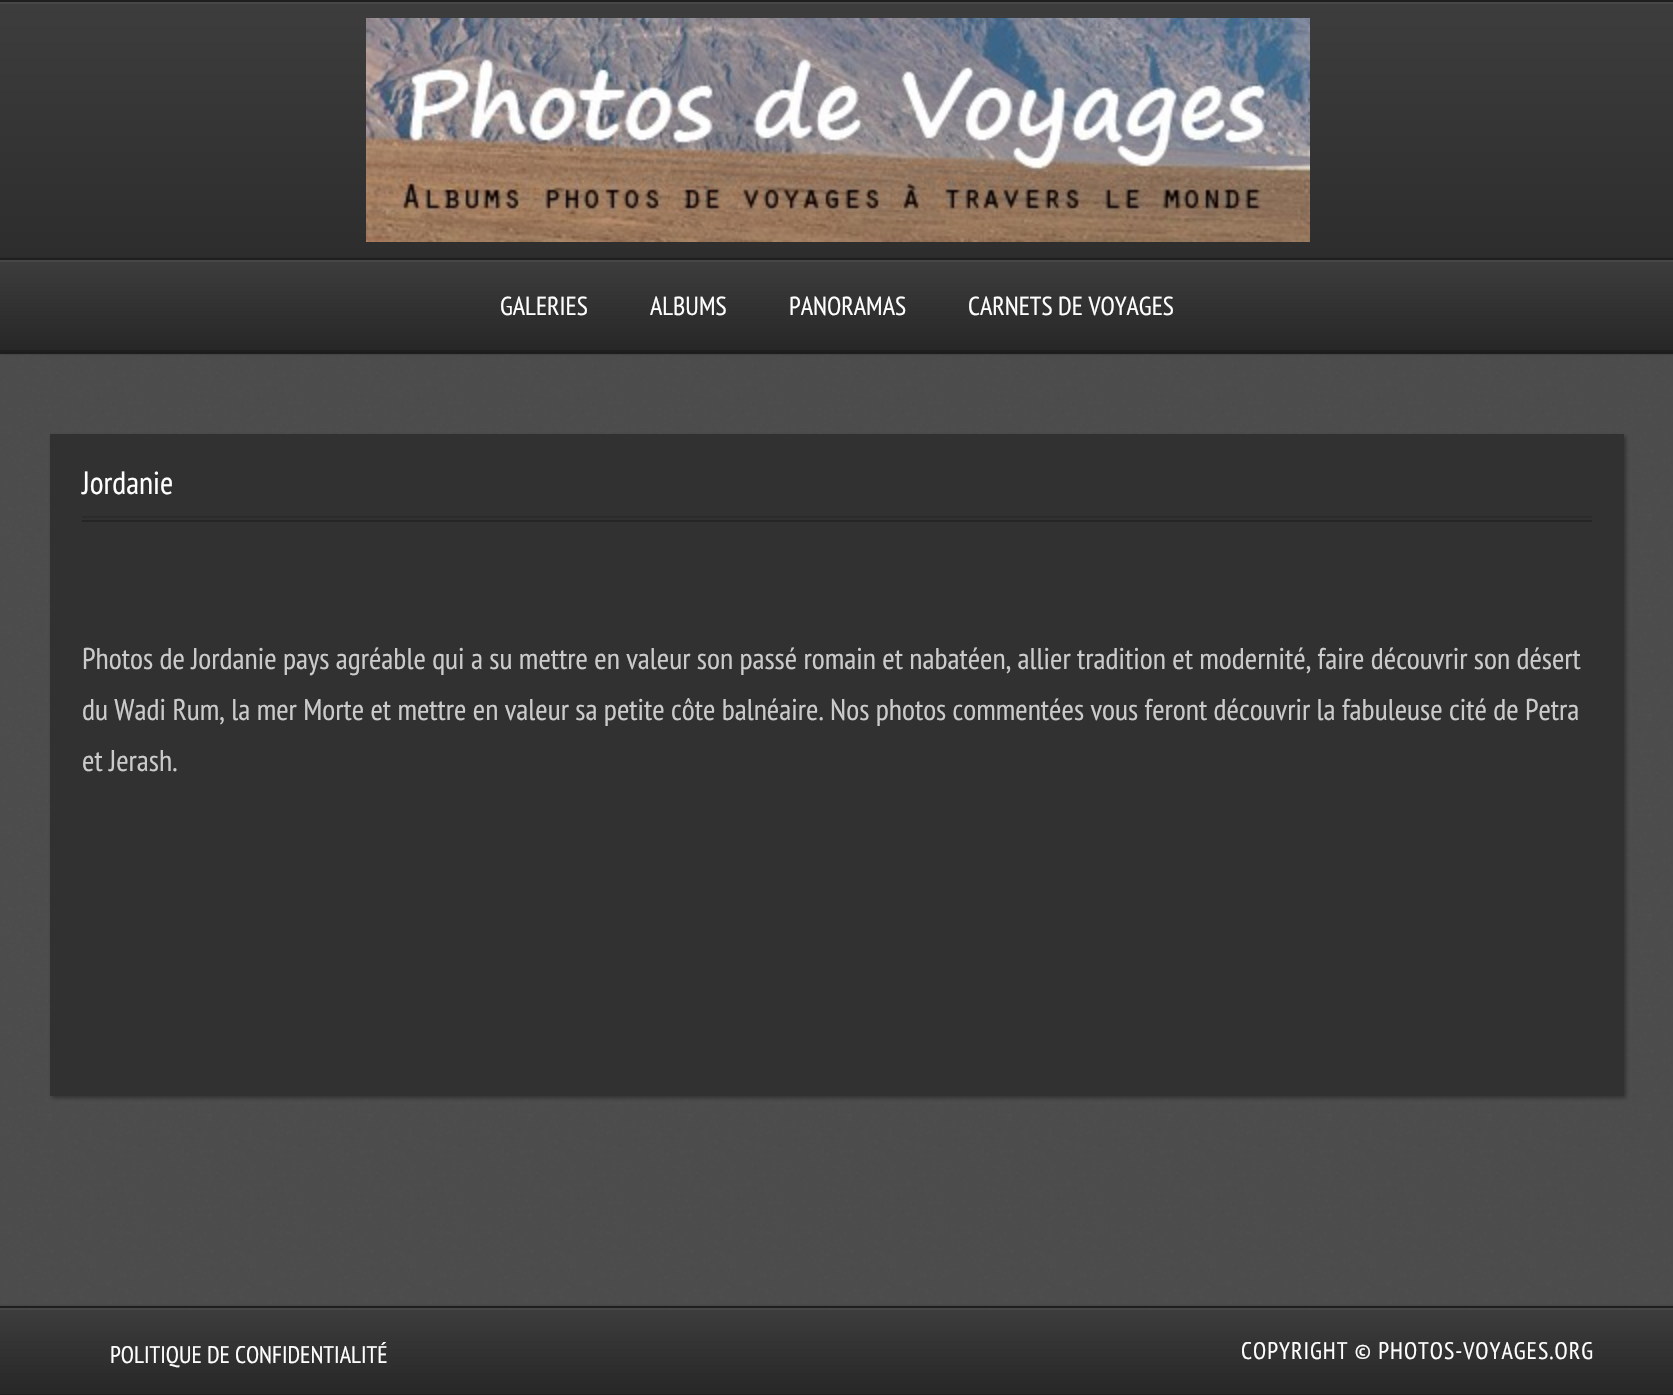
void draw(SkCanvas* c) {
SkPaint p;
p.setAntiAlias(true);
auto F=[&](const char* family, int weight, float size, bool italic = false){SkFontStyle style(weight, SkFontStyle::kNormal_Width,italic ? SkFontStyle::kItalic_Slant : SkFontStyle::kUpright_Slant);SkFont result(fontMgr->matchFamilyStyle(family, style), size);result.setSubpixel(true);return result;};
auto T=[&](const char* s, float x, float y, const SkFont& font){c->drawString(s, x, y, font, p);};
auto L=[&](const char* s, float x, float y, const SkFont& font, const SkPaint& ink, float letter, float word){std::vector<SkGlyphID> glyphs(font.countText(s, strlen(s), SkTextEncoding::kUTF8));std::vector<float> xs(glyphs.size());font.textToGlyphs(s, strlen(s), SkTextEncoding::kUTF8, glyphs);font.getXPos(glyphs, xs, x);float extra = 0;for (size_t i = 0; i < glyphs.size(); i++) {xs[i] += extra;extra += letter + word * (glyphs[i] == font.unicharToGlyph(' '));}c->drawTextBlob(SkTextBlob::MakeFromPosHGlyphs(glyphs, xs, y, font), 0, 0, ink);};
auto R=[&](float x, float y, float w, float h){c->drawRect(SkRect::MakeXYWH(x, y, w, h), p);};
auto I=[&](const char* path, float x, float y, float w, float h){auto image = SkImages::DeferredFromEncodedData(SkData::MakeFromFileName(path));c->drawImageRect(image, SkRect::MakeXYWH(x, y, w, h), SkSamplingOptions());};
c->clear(0xff6a6a6a);
I("1.png",0,354,1673,952);
p.setColor(0x4d000000);
p.setMaskFilter(SkMaskFilter::MakeBlur(kNormal_SkBlurStyle, 1));
c->drawRect(SkRect::MakeXYWH(0,0,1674,354),p);
p.setMaskFilter(nullptr);
{
const SkColor colors[] = {0xff3d3d3d,0xff272727};
const float stops[] = {0,1};
const SkPoint ends[] = {{837,2}, {837,352}};
p.setShader(SkGradientShader::MakeLinear(ends, colors, stops, 2, SkTileMode::kClamp));
p.setAlpha(255);
}
R(0,4,1673,254);
p.setShader(nullptr);
p.setColor(0xff474747);
R(0,2,1673,2);
p.setColor(0xff1f1f1f);
R(0,0,1673,2);
R(0,352,1673,2);
I("2.png",366,18,944,224);
p.setColor(0x4d000000);
p.setMaskFilter(SkMaskFilter::MakeBlur(kNormal_SkBlurStyle, 1));
c->drawRect(SkRect::MakeXYWH(0,258,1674,94),p);
p.setMaskFilter(nullptr);
{
const SkColor colors[] = {0xff3d3d3d,0xff272727};
const float stops[] = {0,1};
const SkPoint ends[] = {{837,260}, {837,350}};
p.setShader(SkGradientShader::MakeLinear(ends, colors, stops, 2, SkTileMode::kClamp));
p.setAlpha(255);
}
R(0,262,1673,88);
p.setShader(nullptr);
p.setColor(0xff474747);
R(0,260,1673,2);
p.setColor(0xff1f1f1f);
R(0,258,1673,2);
R(0,350,1673,2);
auto f1 = F("PT Sans Narrow",400,26);
p.setColor(0xffffffff);
T("GALERIES",500,315,f1);
T("ALBUMS",650,315,f1);
T("PANORAMAS",789,315,f1);
T("CARNETS DE VOYAGES",968,315,f1);
p.setColor(0xcc2b2b2b);
p.setMaskFilter(SkMaskFilter::MakeBlur(kNormal_SkBlurStyle, 2));
c->drawRect(SkRect::MakeXYWH(52,436,1574,662),p);
p.setMaskFilter(nullptr);
p.setColor(0xff313131);
R(50,434,1574,662);
auto f2 = F("PT Sans Narrow",400,32);
p.setColor(0xffffffff);
T("Jordanie",82,494,f2);
p.setColor(0xff2b2b2b);
R(82,516,1510,2);
p.setColor(0xff252525);
R(82,520,1510,2);
auto f3 = F("PT Sans Narrow",400,30);
p.setColor(0xffcbcbcb);
T("Photos de Jordanie pays agréable qui a su mettre en valeur son passé romain et nabatéen, allier tradition et modernité, faire découvrir son désert",82,669,f3);
T("du Wadi Rum, la mer Morte et mettre en valeur sa petite côte balnéaire. Nos photos commentées vous feront découvrir la fabuleuse cité de Petra",82,720,f3);
T("et Jerash.",82,771,f3);
p.setColor(0x4d000000);
p.setMaskFilter(SkMaskFilter::MakeBlur(kNormal_SkBlurStyle, 1));
c->drawRect(SkRect::MakeXYWH(0,1306,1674,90),p);
p.setMaskFilter(nullptr);
{
const SkColor colors[] = {0xff3d3d3d,0xff272727};
const float stops[] = {0,1};
const SkPoint ends[] = {{837,1308}, {837,1394}};
p.setShader(SkGradientShader::MakeLinear(ends, colors, stops, 2, SkTileMode::kClamp));
p.setAlpha(255);
}
R(0,1310,1673,84);
p.setShader(nullptr);
p.setColor(0xff474747);
R(0,1308,1673,2);
p.setColor(0xff1f1f1f);
R(0,1306,1673,2);
R(0,1394,1673,1);
auto f4 = F("PT Sans Narrow",400,24);
p.setColor(0xffffffff);
T("POLITIQUE DE CONFIDENTIALITÉ",110,1363,f4);
L("COPYRIGHT © PHOTOS-VOYAGES.ORG",1241,1359,f4,p,1,0);
}
